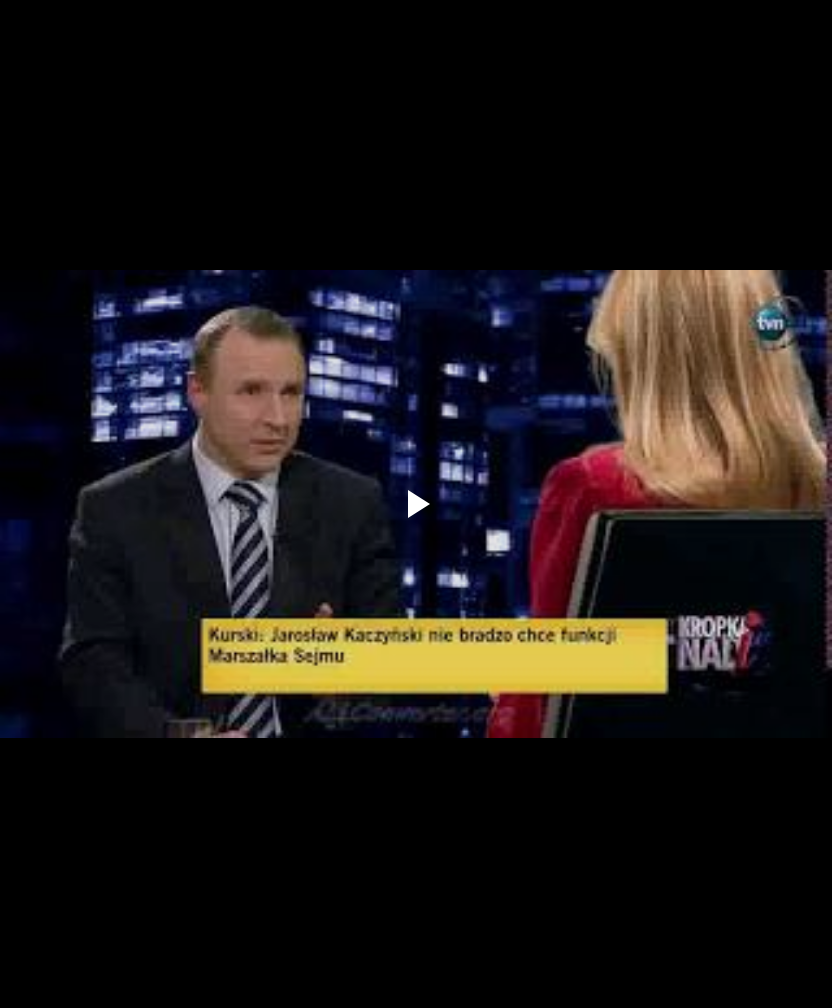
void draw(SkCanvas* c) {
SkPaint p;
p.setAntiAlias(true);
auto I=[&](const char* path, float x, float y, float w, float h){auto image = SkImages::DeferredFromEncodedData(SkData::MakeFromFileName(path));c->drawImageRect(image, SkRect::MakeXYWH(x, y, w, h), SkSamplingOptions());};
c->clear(0xff000000);
I("1.png",0,270,832,468);
I("2.png",408,490,22,28);
}
